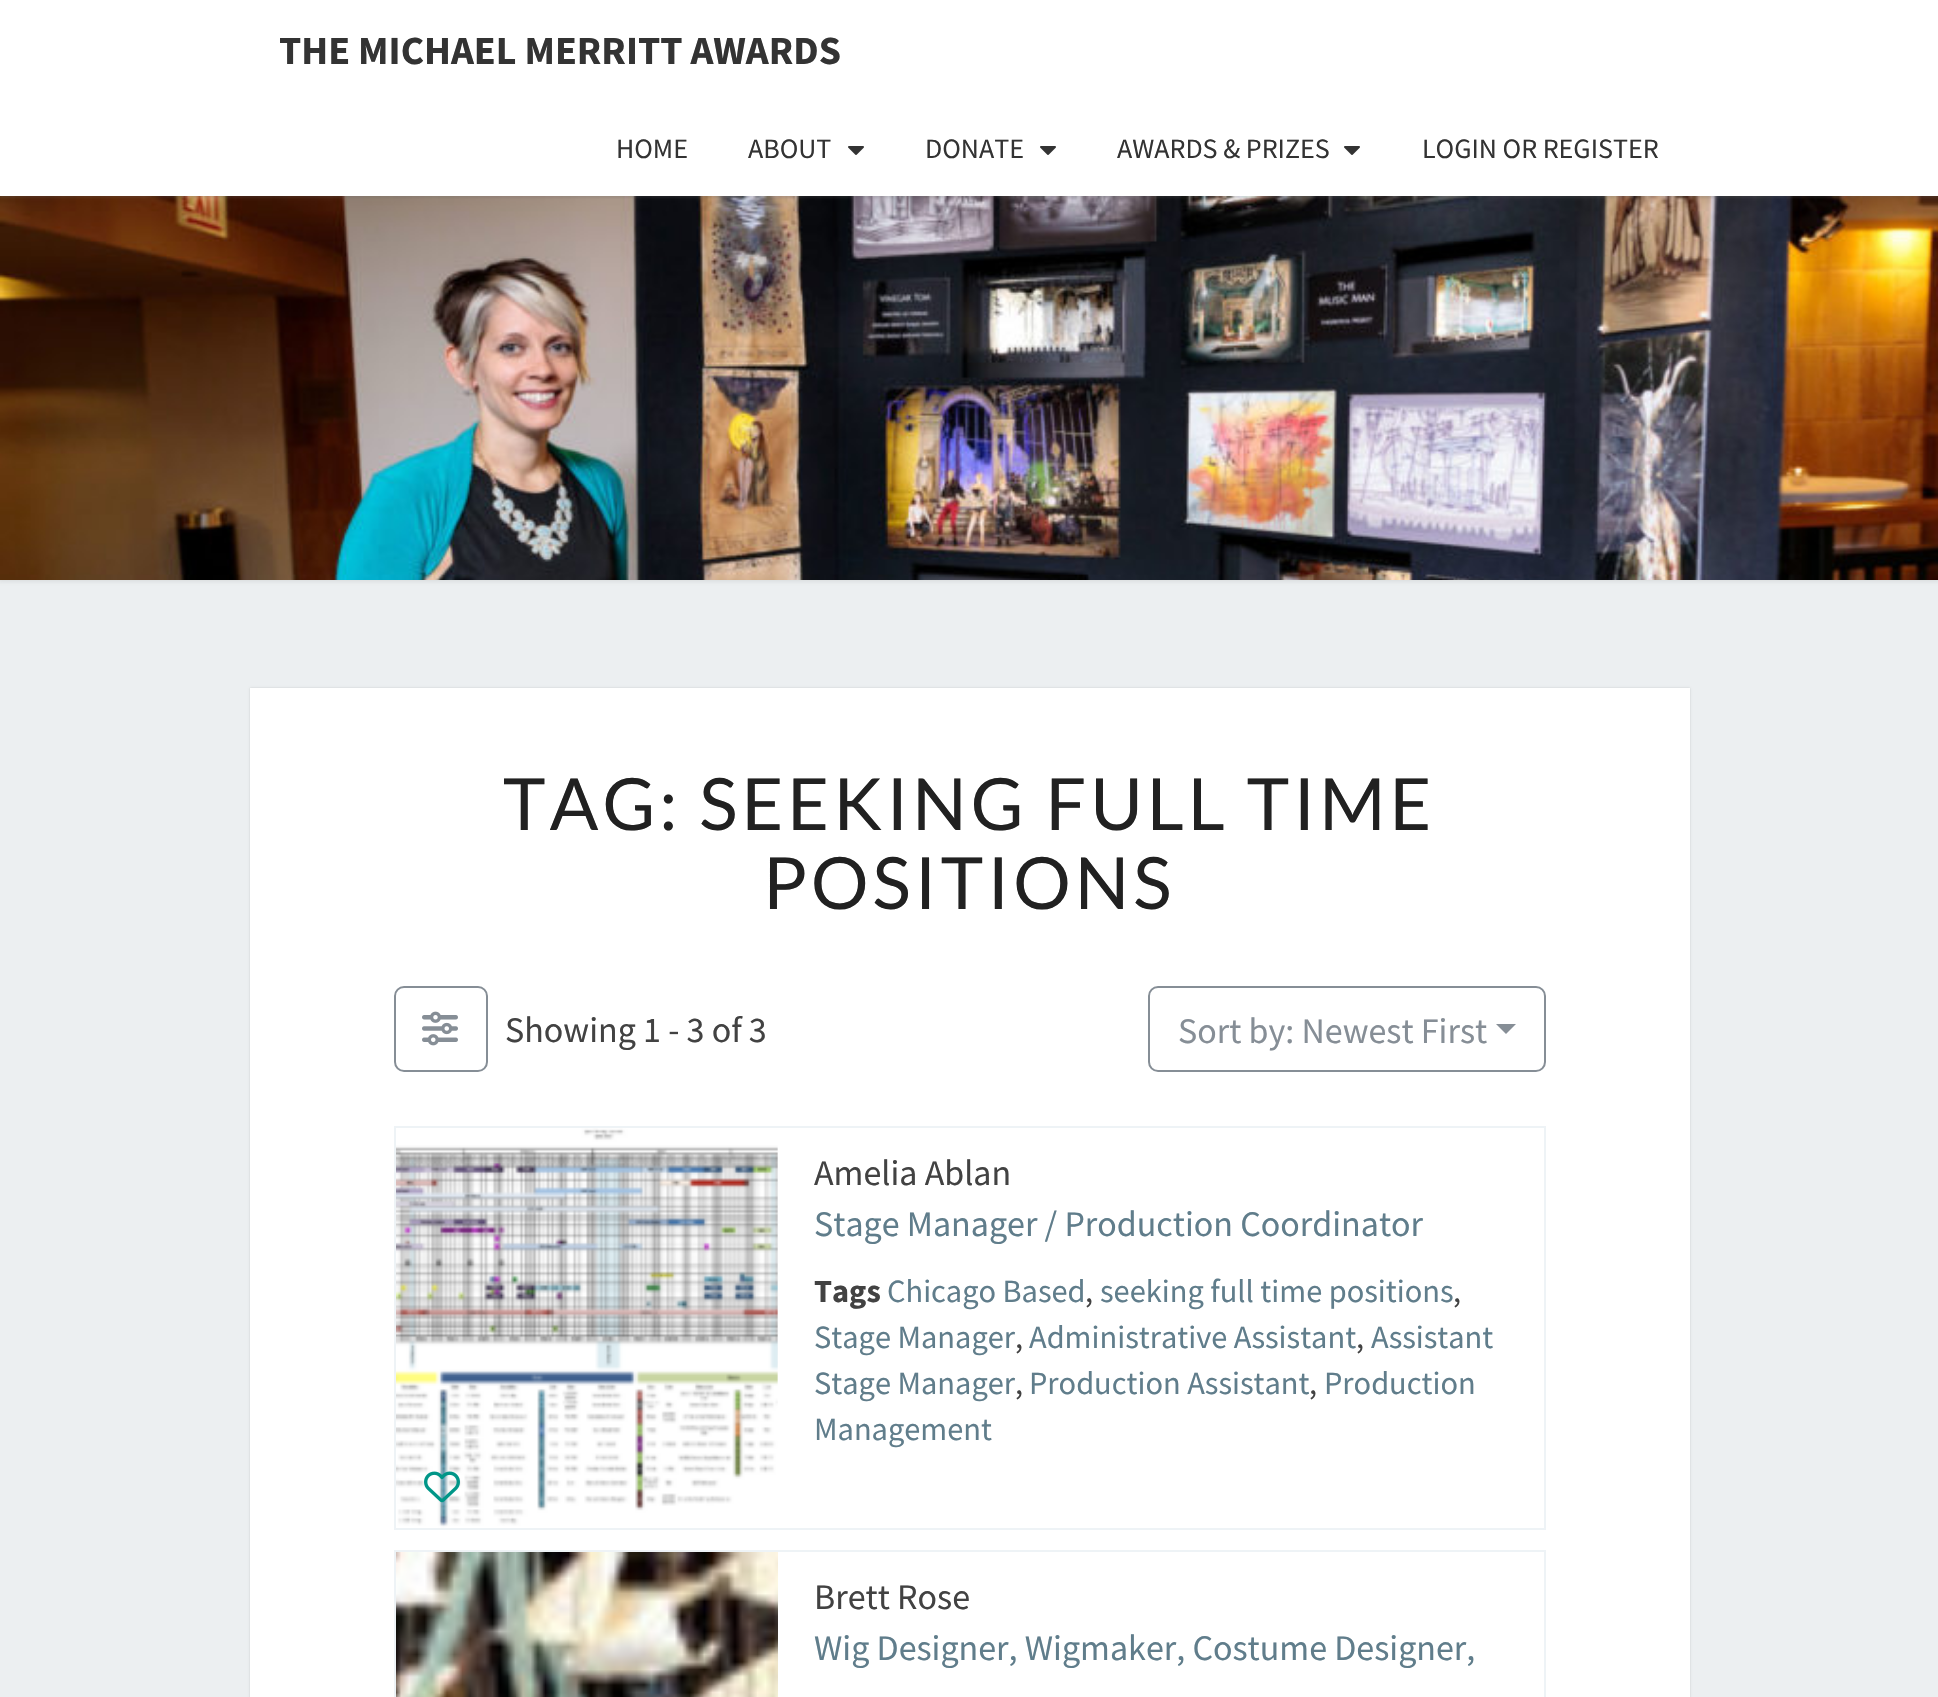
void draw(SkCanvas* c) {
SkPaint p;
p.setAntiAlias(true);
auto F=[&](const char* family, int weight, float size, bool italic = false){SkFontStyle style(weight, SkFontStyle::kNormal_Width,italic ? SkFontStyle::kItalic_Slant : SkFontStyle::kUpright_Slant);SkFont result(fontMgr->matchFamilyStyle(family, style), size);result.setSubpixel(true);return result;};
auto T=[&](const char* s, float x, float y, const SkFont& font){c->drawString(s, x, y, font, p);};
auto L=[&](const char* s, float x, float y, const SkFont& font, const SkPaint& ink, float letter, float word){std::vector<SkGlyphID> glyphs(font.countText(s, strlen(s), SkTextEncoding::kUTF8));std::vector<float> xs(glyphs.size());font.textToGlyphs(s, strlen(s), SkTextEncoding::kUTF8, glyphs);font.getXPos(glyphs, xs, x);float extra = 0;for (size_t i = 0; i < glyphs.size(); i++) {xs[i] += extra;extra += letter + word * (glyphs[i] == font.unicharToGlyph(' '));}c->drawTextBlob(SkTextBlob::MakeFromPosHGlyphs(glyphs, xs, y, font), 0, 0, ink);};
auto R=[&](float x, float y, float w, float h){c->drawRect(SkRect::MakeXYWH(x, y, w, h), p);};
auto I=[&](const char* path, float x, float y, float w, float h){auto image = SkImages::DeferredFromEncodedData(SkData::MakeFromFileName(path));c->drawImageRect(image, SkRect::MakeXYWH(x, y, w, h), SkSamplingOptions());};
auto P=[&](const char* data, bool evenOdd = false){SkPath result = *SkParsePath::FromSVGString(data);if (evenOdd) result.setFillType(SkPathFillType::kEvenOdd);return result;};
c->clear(0xffeceff1);
p.setColor(0x4db6b6b6);
p.setMaskFilter(SkMaskFilter::MakeBlur(kNormal_SkBlurStyle, 2));
c->drawRect(SkRect::MakeXYWH(-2,194,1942,388),p);
p.setMaskFilter(nullptr);
I("2.png",0,196,1938,384);
p.setColor(0x33646464);
p.setMaskFilter(SkMaskFilter::MakeBlur(kNormal_SkBlurStyle, 1));
c->drawRect(SkRect::MakeXYWH(0,2,1938,196),p);
p.setMaskFilter(nullptr);
p.setColor(0xffffffff);
R(0,0,1938,196);
auto f1 = F("Source Sans Pro",700,40);
p.setColor(0xff333333);
T("THE MICHAEL MERRITT AWARDS",279,64,f1);
auto f2 = F("Source Sans Pro",400,28);
T("HOME",616,158,f2);
T("ABOUT",748,158,f2);
I("1.png",848,146,16,9);
T("DONATE",925,158,f2);
I("1.png",1040,146,16,9);
T("AWARDS & PRIZES",1117,158,f2);
I("1.png",1344,146,16,9);
T("LOGIN OR REGISTER",1422,158,f2);
p.setColor(0x26000000);
p.setMaskFilter(SkMaskFilter::MakeBlur(kNormal_SkBlurStyle, 1));
c->drawRect(SkRect::MakeXYWH(250,688,1440,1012),p);
p.setMaskFilter(nullptr);
p.setColor(0xffffffff);
R(250,688,1440,1009);
auto f3 = F("Lato",400,72);
p.setColor(0xff212121);
L("TAG: SEEKING FULL TIME",503,830,f3,p,4,0);
L("POSITIONS",763,909,f3,p,4,0);
p.setStroke(true);
p.setStrokeWidth(2);
p.setColor(0xff868e96);
c->drawRoundRect(SkRect::MakeXYWH(395,987,92,84),9,9,p);
I("3.png",422,1011,36,35);
auto f4 = F("Source Sans Pro",400,36);
p.setStroke(false);
p.setColor(0xff424242);
T("Showing 1 - 3 of 3",505,1042,f4);
p.setStroke(true);
p.setColor(0xff868e96);
c->drawRoundRect(SkRect::MakeXYWH(1149,987,396,84),9,9,p);
p.setStroke(false);
T("Sort by: Newest First",1178,1043,f4);
c->drawPath(P("M1496 1024h20l-10 10z"),p);
p.setStroke(true);
p.setColor(0xffeef3f6);
c->drawRect(SkRect::MakeXYWH(395,1127,1150,402),p);
I("4.png",396,1128,382,400);
I("5.png",424,1471,36,32);
p.setStroke(false);
p.setColor(0xff424242);
T("Amelia Ablan",814,1185,f4);
p.setColor(0xff607d8b);
T("Stage Manager / Production Coordinator",814,1236,f4);
auto f5 = F("Source Sans Pro",700,32.4);
p.setColor(0xff424242);
T("Tags",814,1302,f5);
auto f6 = F("Source Sans Pro",400,32.4);
p.setColor(0xff607d8b);
T("Chicago Based",887,1302,f6);
p.setColor(0xff424242);
T(",",1085,1302,f6);
p.setColor(0xff607d8b);
T("seeking full time positions",1100,1302,f6);
p.setColor(0xff424242);
T(",",1453,1302,f6);
p.setColor(0xff607d8b);
T("Stage Manager",814,1348,f6);
p.setColor(0xff424242);
T(",",1015,1348,f6);
p.setColor(0xff607d8b);
T("Administrative Assistant",1029,1348,f6);
p.setColor(0xff424242);
T(",",1356,1348,f6);
p.setColor(0xff607d8b);
T("Assistant",1371,1348,f6);
T("Stage Manager",814,1394,f6);
p.setColor(0xff424242);
T(",",1015,1394,f6);
p.setColor(0xff607d8b);
T("Production Assistant",1029,1394,f6);
p.setColor(0xff424242);
T(",",1309,1394,f6);
p.setColor(0xff607d8b);
T("Production",1324,1394,f6);
T("Management",814,1440,f6);
p.setStroke(true);
p.setColor(0xffeef3f6);
c->drawRect(SkRect::MakeXYWH(395,1551,1150,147),p);
I("6.png",396,1552,382,145);
p.setStroke(false);
p.setColor(0xff424242);
T("Brett Rose",814,1609,f4);
p.setColor(0xff607d8b);
T("Wig Designer, Wigmaker, Costume Designer,",814,1660,f4);
}
